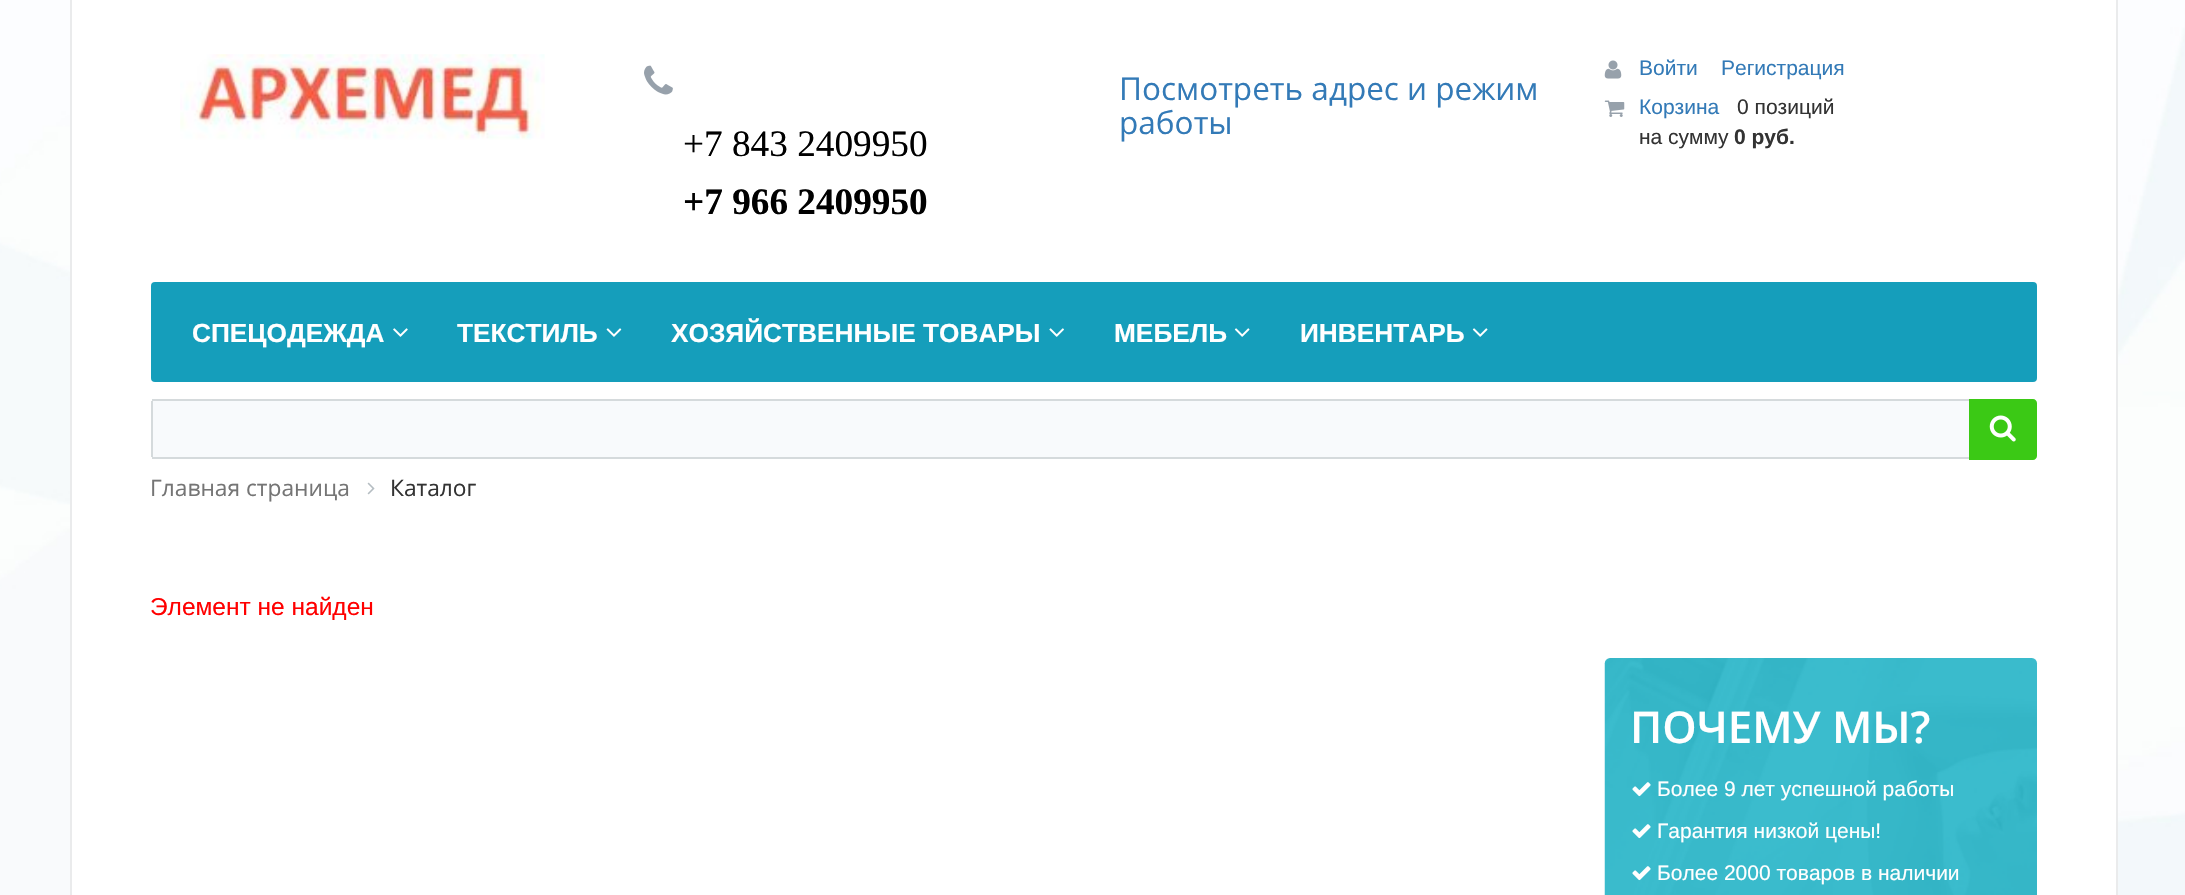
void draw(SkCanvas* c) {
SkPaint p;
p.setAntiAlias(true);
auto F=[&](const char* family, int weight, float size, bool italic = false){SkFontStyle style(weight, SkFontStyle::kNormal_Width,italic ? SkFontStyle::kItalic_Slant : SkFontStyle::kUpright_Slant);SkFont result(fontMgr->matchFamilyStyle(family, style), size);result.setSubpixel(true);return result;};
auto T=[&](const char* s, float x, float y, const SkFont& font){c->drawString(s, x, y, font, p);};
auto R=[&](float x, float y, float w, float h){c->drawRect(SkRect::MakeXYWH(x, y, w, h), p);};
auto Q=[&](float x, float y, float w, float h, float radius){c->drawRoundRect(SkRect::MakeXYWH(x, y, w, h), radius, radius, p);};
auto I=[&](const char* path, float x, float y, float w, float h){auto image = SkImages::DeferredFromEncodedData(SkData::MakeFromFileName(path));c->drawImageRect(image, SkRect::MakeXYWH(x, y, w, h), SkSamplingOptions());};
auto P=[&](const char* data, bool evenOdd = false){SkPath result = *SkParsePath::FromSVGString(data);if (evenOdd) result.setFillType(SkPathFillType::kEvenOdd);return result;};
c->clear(0xffffffff);
I("1.png",0,0,2185,895);
p.setColor(0xffffffff);
R(72,0,2044,895);
p.setColor(0xffeaebec);
R(2116,0,2,895);
R(70,0,2,895);
I("2.png",180,54,365,86);
auto f1 = F("Open Sans",400,31.5);
p.setColor(0xff337ab7);
T("Посмотреть адрес и режим",1119,100,f1);
T("работы",1119,134,f1);
I("3.png",1604,60,18,19);
auto f2 = F("Liberation Sans",400,21);
T("Войти",1639,75,f2);
T("Регистрация",1721,75,f2);
I("4.png",1604,100,21,17);
T("Корзина",1639,114,f2);
p.setColor(0xff333333);
T("0 позиций",1737,114,f2);
T("на сумму",1639,144,f2);
auto f3 = F("Liberation Sans",700,21);
T("0 руб.",1734,144,f3);
I("5.png",644,65,29,30);
auto f4 = F("Liberation Serif",400,37.25);
p.setColor(0xff000000);
T("+7 843 2409950",683,156,f4);
auto f5 = F("Liberation Serif",700,37.25);
T("+7 966 2409950",683,214,f5);
p.setColor(0xff159ebb);
Q(151,282,1886,100,4);
auto f6 = F("Liberation Sans",700,26.25);
p.setColor(0xffffffff);
T("СПЕЦОДЕЖДА",192,342,f6);
I("6.png",393,328,15,9);
T("ТЕКСТИЛЬ",457,342,f6);
I("7.png",606,328,16,9);
T("ХОЗЯЙСТВЕННЫЕ ТОВАРЫ",671,342,f6);
I("8.png",1049,328,15,9);
T("МЕБЕЛЬ",1114,342,f6);
I("9.png",1234,328,16,9);
T("ИНВЕНТАРЬ",1300,342,f6);
I("9.png",1472,328,16,9);
p.setColor(0xfff8fafc);
c->drawPath(P("M155 399h1814v60h-1814c-2 0-4-2-4-4v-52c0-2 2-4 4-4z"),p);
p.setColor(0xffd5dadc);
R(152,399,1817,2);
R(152,457,1817,2);
R(151,401,2,56);
p.setColor(0xff3bc915);
c->drawPath(P("M1969 399h64c2 0 4 2 4 4v53c0 2-2 4-4 4h-64z"),p);
I("10.png",1989,415,27,27);
auto f7 = F("Open Sans",400,22.75);
p.setColor(0xff757575);
T("Главная страница",150,496,f7);
I("11.png",367,482,8,13);
p.setColor(0xff333333);
T("Каталог",390,496,f7);
auto f8 = F("Liberation Sans",400,24.5);
p.setColor(0xffff0000);
T("Элемент не найден",150,615,f8);
I("12.png",1604,658,434,237);
auto f9 = F("Open Sans",600,43.75);
p.setColor(0xffffffff);
T("ПОЧЕМУ МЫ?",1630,743,f9);
I("13.png",1632,782,19,15);
T("Более 9 лет успешной работы",1657,796,f2);
I("14.png",1632,824,19,15);
T("Гарантия низкой цены!",1657,838,f2);
I("15.png",1632,866,19,15);
T("Более 2000 товаров в наличии",1657,880,f2);
}
